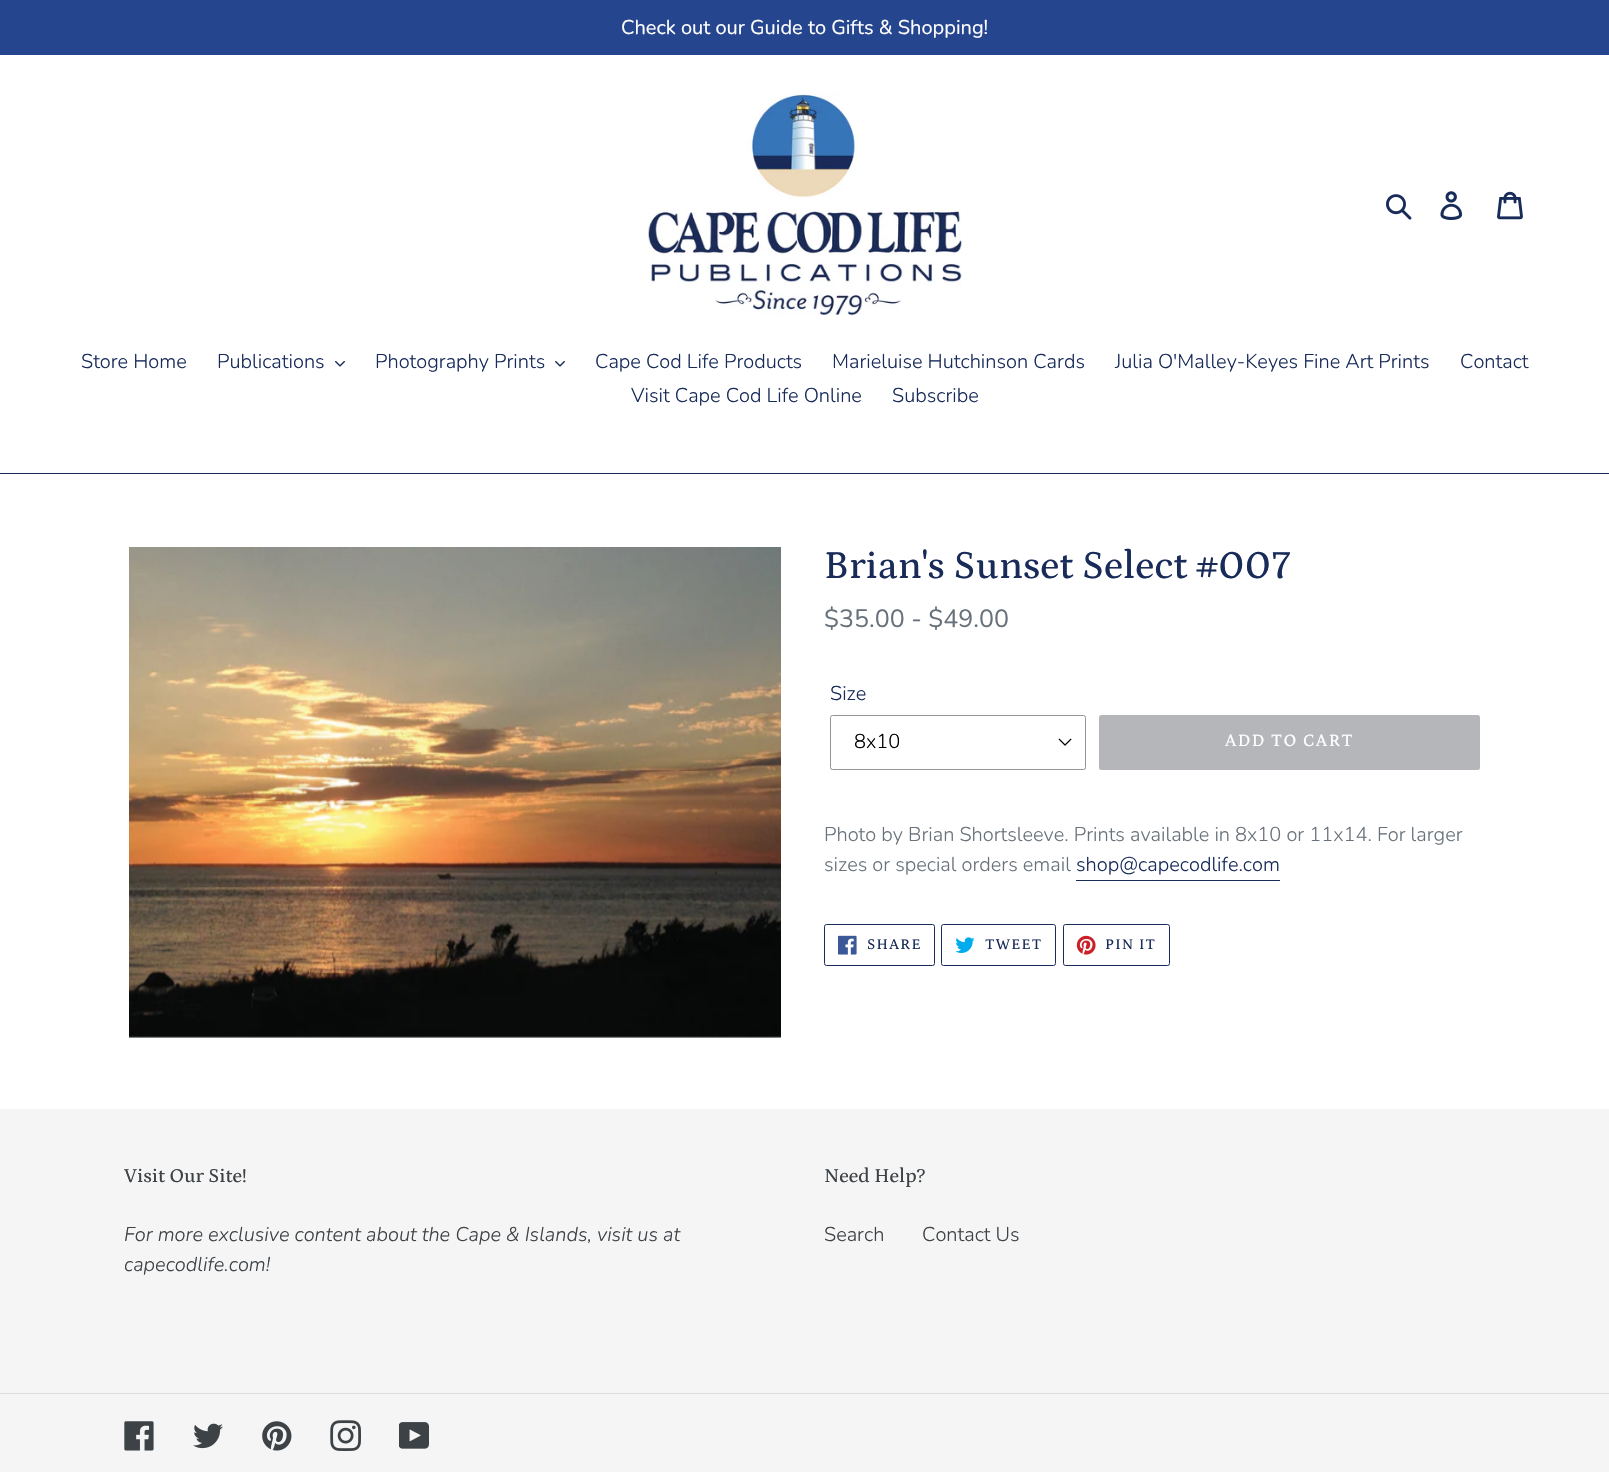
void draw(SkCanvas* c) {
SkPaint p;
p.setAntiAlias(true);
auto F=[&](const char* family, int weight, float size, bool italic = false){SkFontStyle style(weight, SkFontStyle::kNormal_Width,italic ? SkFontStyle::kItalic_Slant : SkFontStyle::kUpright_Slant);SkFont result(fontMgr->matchFamilyStyle(family, style), size);result.setSubpixel(true);return result;};
auto T=[&](const char* s, float x, float y, const SkFont& font){c->drawString(s, x, y, font, p);};
auto L=[&](const char* s, float x, float y, const SkFont& font, const SkPaint& ink, float letter, float word){std::vector<SkGlyphID> glyphs(font.countText(s, strlen(s), SkTextEncoding::kUTF8));std::vector<float> xs(glyphs.size());font.textToGlyphs(s, strlen(s), SkTextEncoding::kUTF8, glyphs);font.getXPos(glyphs, xs, x);float extra = 0;for (size_t i = 0; i < glyphs.size(); i++) {xs[i] += extra;extra += letter + word * (glyphs[i] == font.unicharToGlyph(' '));}c->drawTextBlob(SkTextBlob::MakeFromPosHGlyphs(glyphs, xs, y, font), 0, 0, ink);};
auto R=[&](float x, float y, float w, float h){c->drawRect(SkRect::MakeXYWH(x, y, w, h), p);};
auto Q=[&](float x, float y, float w, float h, float radius){c->drawRoundRect(SkRect::MakeXYWH(x, y, w, h), radius, radius, p);};
auto I=[&](const char* path, float x, float y, float w, float h){auto image = SkImages::DeferredFromEncodedData(SkData::MakeFromFileName(path));c->drawImageRect(image, SkRect::MakeXYWH(x, y, w, h), SkSamplingOptions());};
c->clear(0xffffffff);
p.setColor(0xff26458f);
R(0,0,1609,55);
auto f1 = F("Nunito",400,20);
p.setColor(0xffffffff);
T("Check out our Guide to Gifts & Shopping!",621,34,f1);
I("1.png",648,92,314,223);
I("2.png",1386,194,26,26);
I("3.png",1440,191,23,29);
I("4.png",1497,191,26,29);
p.setColor(0xff182b59);
R(0,473,1609,1);
auto f2 = F("Nunito",300,20);
T("Store Home",81,368,f2);
T("Publications",217,368,f2);
I("5.png",335,360,10,7);
T("Photography Prints",375,368,f2);
I("5.png",555,360,10,7);
T("Cape Cod Life Products",595,368,f2);
T("Marieluise Hutchinson Cards",832,368,f2);
T("Julia O'Malley-Keyes Fine Art Prints",1115,368,f2);
T("Contact",1460,368,f2);
T("Visit Cape Cod Life Online",631,402,f2);
T("Subscribe",892,402,f2);
I("6.png",129,547,652,491);
auto f3 = F("Petrona",500,40);
T("Brian's Sunset Select #007",824,578,f3);
auto f4 = F("Nunito",400,25);
p.setColor(0xff69727b);
T("$35.00 - $49.00",824,627,f4);
p.setColor(0xff182b59);
T("Size",830,700,f2);
I("7.png",1058,738,14,8);
p.setStroke(true);
p.setStrokeWidth(1);
p.setColor(0xff949494);
c->drawRoundRect(SkRect::MakeXYWH(830.5,715.5,255,54),2,2,p);
p.setStroke(false);
p.setColor(0xff000000);
T("8x10",854,748,f2);
p.setColor(0xffb5b6b9);
Q(1099,715,381,55,2.5);
auto f5 = F("Petrona",500,17.5);
p.setColor(0xffffffff);
L("ADD TO CART",1225,746,f5,p,1.4,0);
p.setColor(0xff69727b);
T("Photo by Brian Shortsleeve. Prints available in 8x10 or 11x14. For larger",824,841,f2);
T("sizes or special orders email",824,871,f2);
p.setColor(0xff182b59);
T("shop@capecodlife.com",1076,871,f2);
R(1076,880,204,1);
p.setStroke(true);
c->drawRoundRect(SkRect::MakeXYWH(824.5,924.5,110,41),2,2,p);
I("8.png",838,935,19,20);
auto f6 = F("Petrona",500,15);
p.setStroke(false);
L("SHARE",867,949,f6,p,1.25,0);
p.setStroke(true);
c->drawRoundRect(SkRect::MakeXYWH(941.5,924.5,114,41),2,2,p);
I("9.png",955,937,20,16);
p.setStroke(false);
L("TWEET",985,949,f6,p,1.25,0);
p.setStroke(true);
c->drawRoundRect(SkRect::MakeXYWH(1063.5,924.5,106,41),2,2,p);
I("10.png",1076,935,20,20);
p.setStroke(false);
L("PIN IT",1105,949,f6,p,1.25,0);
p.setColor(0xfff5f5f5);
R(0,1109,1609,363);
auto f7 = F("Petrona",500,20);
p.setColor(0xff3d4246);
T("Visit Our Site!",124,1182,f7);
auto f8 = F("Nunito",300,20,true);
T("For more exclusive content about the Cape & Islands, visit us at",124,1241,f8);
T("capecodlife.com!",124,1271,f8);
T("Need Help?",824,1182,f7);
T("Search",824,1241,f2);
T("Contact Us",922,1241,f2);
p.setColor(0xffdcdcdc);
R(0,1393,1609,1);
I("11.png",124,1421,30,30);
I("12.png",193,1423,30,26);
I("13.png",262,1421,30,30);
I("14.png",330,1420,31,31);
I("15.png",399,1422,30,27);
}
